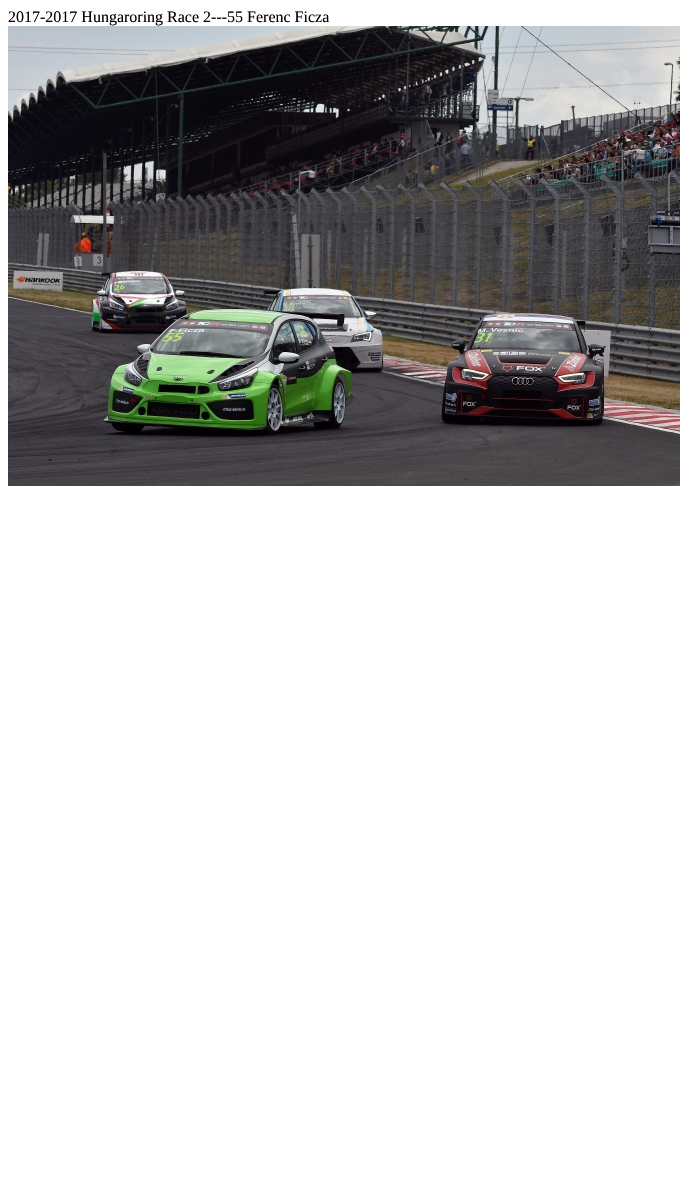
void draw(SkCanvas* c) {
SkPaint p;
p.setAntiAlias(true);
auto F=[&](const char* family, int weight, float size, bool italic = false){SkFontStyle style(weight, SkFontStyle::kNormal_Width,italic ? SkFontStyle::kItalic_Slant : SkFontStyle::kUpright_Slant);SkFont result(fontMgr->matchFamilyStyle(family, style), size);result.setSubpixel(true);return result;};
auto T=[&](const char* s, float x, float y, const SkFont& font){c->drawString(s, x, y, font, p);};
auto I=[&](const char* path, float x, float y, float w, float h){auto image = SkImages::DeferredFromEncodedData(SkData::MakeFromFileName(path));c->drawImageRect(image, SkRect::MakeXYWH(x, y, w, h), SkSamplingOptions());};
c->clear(0xffffffff);
auto f1 = F("Liberation Serif",400,16);
p.setColor(0xff000000);
T("2017-2017 Hungaroring Race 2---55 Ferenc Ficza",8,22,f1);
I("1.png",8,26,672,460);
}
